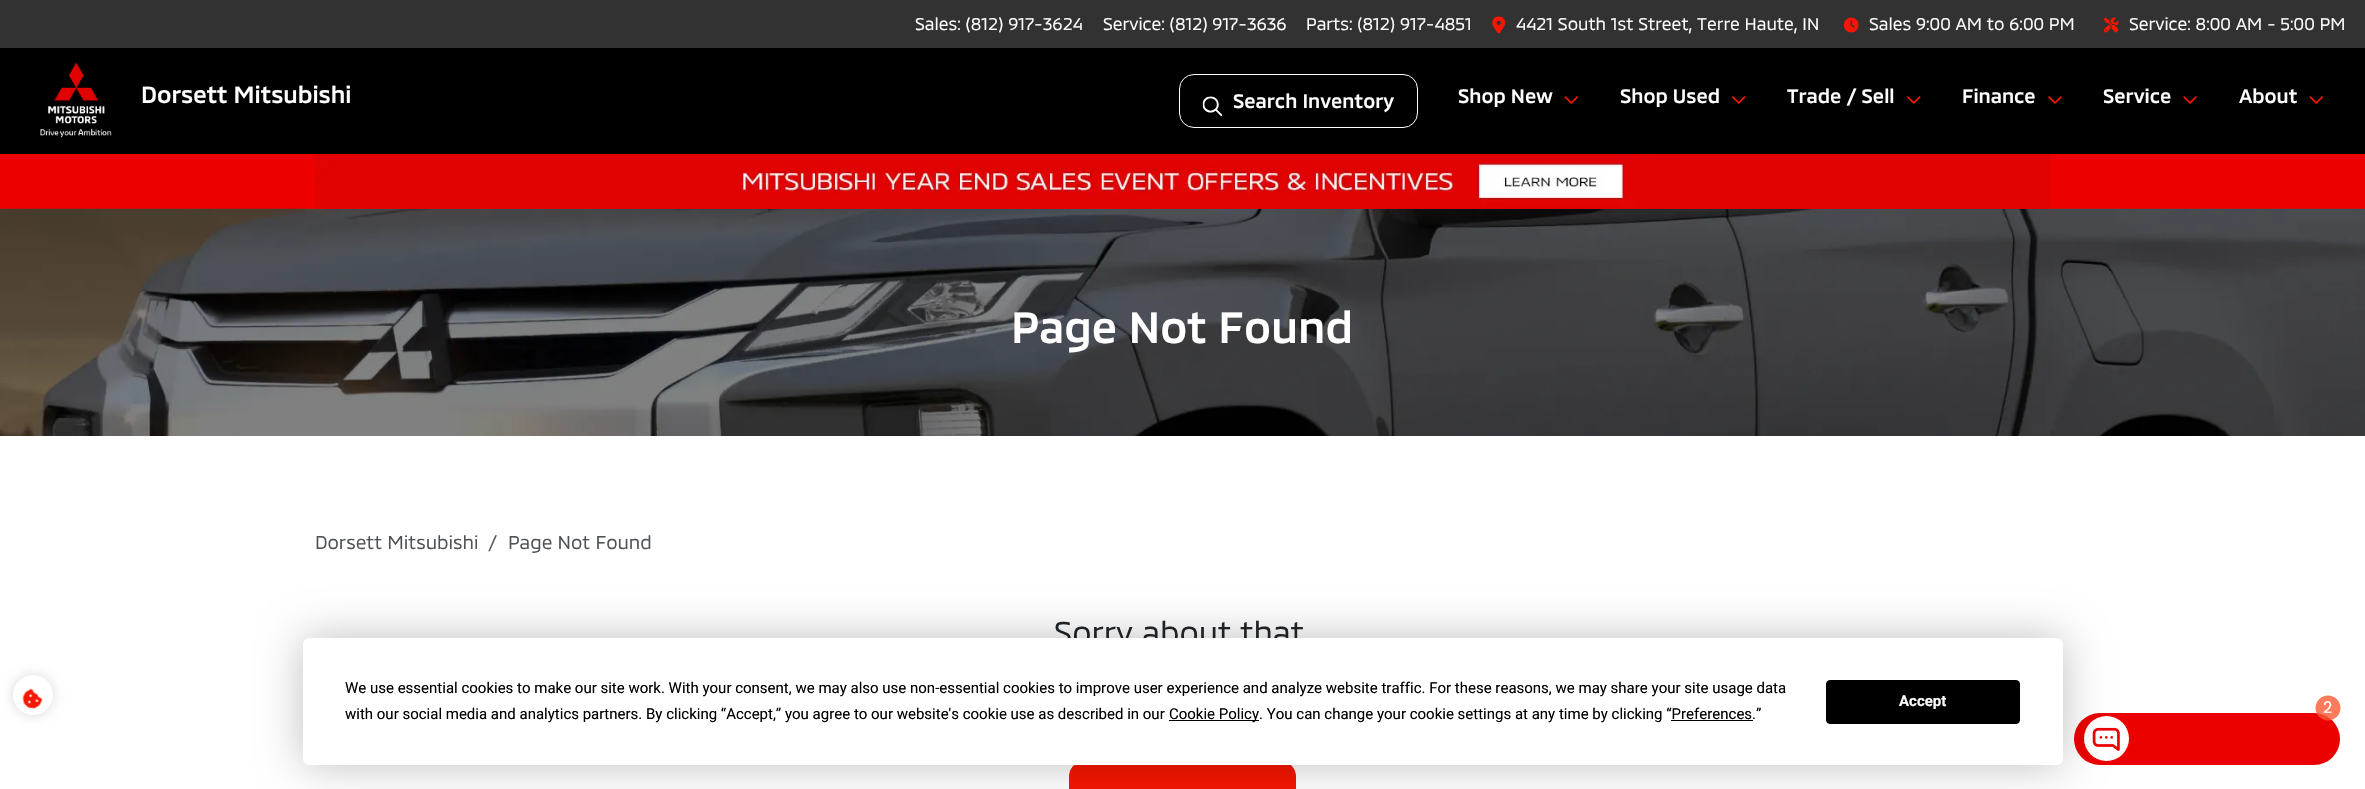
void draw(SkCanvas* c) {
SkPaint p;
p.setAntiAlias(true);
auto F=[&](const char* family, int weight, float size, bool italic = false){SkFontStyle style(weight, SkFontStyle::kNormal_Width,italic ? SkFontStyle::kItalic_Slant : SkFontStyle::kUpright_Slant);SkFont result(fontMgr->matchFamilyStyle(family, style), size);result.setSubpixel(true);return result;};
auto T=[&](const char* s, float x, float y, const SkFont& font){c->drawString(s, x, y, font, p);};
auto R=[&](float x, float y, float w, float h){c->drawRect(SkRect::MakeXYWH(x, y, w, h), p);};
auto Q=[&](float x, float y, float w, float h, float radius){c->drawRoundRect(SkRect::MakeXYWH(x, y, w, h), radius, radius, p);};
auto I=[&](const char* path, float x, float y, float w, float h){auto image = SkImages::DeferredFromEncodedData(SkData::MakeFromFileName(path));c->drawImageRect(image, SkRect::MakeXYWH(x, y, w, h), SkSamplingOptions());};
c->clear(0xff323232);
p.setColor(0xff2f3030);
R(0,46,2365,1);
auto f1 = F("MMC",400,17.4);
p.setColor(0xffffffff);
T("Sales: (812) 917-3624",915,30,f1);
T("Service: (812) 917-3636",1103,30,f1);
T("Parts: (812) 917-4851",1306,30,f1);
I("1.png",1492,16,14,18);
T("4421 South 1st Street, Terre Haute, IN",1516,30,f1);
I("2.png",1844,17,15,16);
T("Sales 9:00 AM to 6:00 PM",1869,30,f1);
I("3.png",2104,17,15,16);
T("Service: 8:00 AM - 5:00 PM",2129,30,f1);
p.setColor(0xff000000);
R(0,48,2365,105);
p.setColor(0xff020303);
R(0,153,2365,1);
I("4.png",40,62,72,76);
auto f2 = F("MMC",500,24);
p.setColor(0xffffffff);
T("Dorsett Mitsubishi",141,103,f2);
p.setStroke(true);
p.setStrokeWidth(1);
c->drawRoundRect(SkRect::MakeXYWH(1179.5,74.5,238,53),14.5,14.5,p);
I("5.png",1202,96,21,20);
auto f3 = F("MMC",500,20);
p.setStroke(false);
T("Search Inventory",1233,108,f3);
T("Shop New",1458,103,f3);
I("6.png",1564,96,14,8);
T("Shop Used",1620,103,f3);
I("7.png",1732,96,14,8);
T("Trade / Sell",1787,103,f3);
I("7.png",1907,96,14,8);
T("Finance",1962,103,f3);
I("8.png",2048,96,14,8);
T("Service",2103,103,f3);
I("8.png",2183,96,14,8);
T("About",2239,103,f3);
I("6.png",2309,96,14,8);
p.setColor(0xffec0100);
R(0,154,2365,55);
I("10.png",0,208,2365,228);
I("9.png",315,154,1735,55);
auto f4 = F("MMC",500,45);
p.setColor(0xffffffff);
T("Page Not Found",1011,343,f4);
R(0,436,2365,353);
auto f5 = F("MMC",400,19);
p.setColor(0xff4e5155);
T("Dorsett Mitsubishi",315,549,f5);
p.setColor(0xff595c5f);
T("/",488,549,f5);
p.setColor(0xff4e5155);
T("Page Not Found",508,549,f5);
auto f6 = F("MMC",400,32.25);
p.setColor(0xff212529);
T("Sorry about that",1054,644,f6);
p.setColor(0xfff61601);
c->drawRoundRect(SkRect::MakeXYWH(1069.5,761.5,226,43),14.5,14.5,p);
p.setStroke(true);
c->drawRoundRect(SkRect::MakeXYWH(1069.5,761.5,226,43),14.5,14.5,p);
p.setStroke(false);
p.setColor(0x26000000);
p.setMaskFilter(SkMaskFilter::MakeBlur(kNormal_SkBlurStyle, 6));
c->drawRoundRect(SkRect::MakeXYWH(13,675,40,40),20,20,p);
p.setMaskFilter(nullptr);
p.setColor(0xffffffff);
c->drawCircle(33,695,20,p);
I("11.png",22,688,21,21);
p.setColor(0xffeb0100);
Q(2074,713,266,52,26);
p.setColor(0xffffffff);
c->drawCircle(2106.5,738.5,22.5,p);
I("12.png",2092,727,28,24);
p.setColor(0x40000000);
p.setMaskFilter(SkMaskFilter::MakeBlur(kNormal_SkBlurStyle, 22));
c->drawRoundRect(SkRect::MakeXYWH(303,638,1760,127),6,6,p);
p.setMaskFilter(nullptr);
p.setColor(0xffffffff);
Q(303,638,1760,127,6);
auto f7 = F("Roboto",400,15);
p.setColor(0xff000000);
T("We use essential cookies to make our site work. With your consent, we may also use non-essential cookies to improve user experience and analyze website traffic. For these reasons, we may share your site usage data",345,693,f7);
T("with our social media and analytics partners. By clicking “Accept,” you agree to our website's cookie use as described in our",345,719,f7);
R(1169,720,90,1);
T("Cookie Policy. You can change your cookie settings at any time by clicking “Preferences.”",1169,719,f7);
R(1671,720,82,1);
c->drawRoundRect(SkRect::MakeXYWH(1826.5,680.5,193,43),3.5,3.5,p);
p.setStroke(true);
c->drawRoundRect(SkRect::MakeXYWH(1826.5,680.5,193,43),3.5,3.5,p);
auto f8 = F("Roboto",700,15);
p.setStroke(false);
p.setColor(0xffffffff);
T("Accept",1899,706,f8);
p.setColor(0xc9ff5733);
c->drawCircle(2328,708,12.5,p);
auto f9 = F("Poppins",400,16);
p.setColor(0xffffffff);
T("2",2323,713,f9);
}
